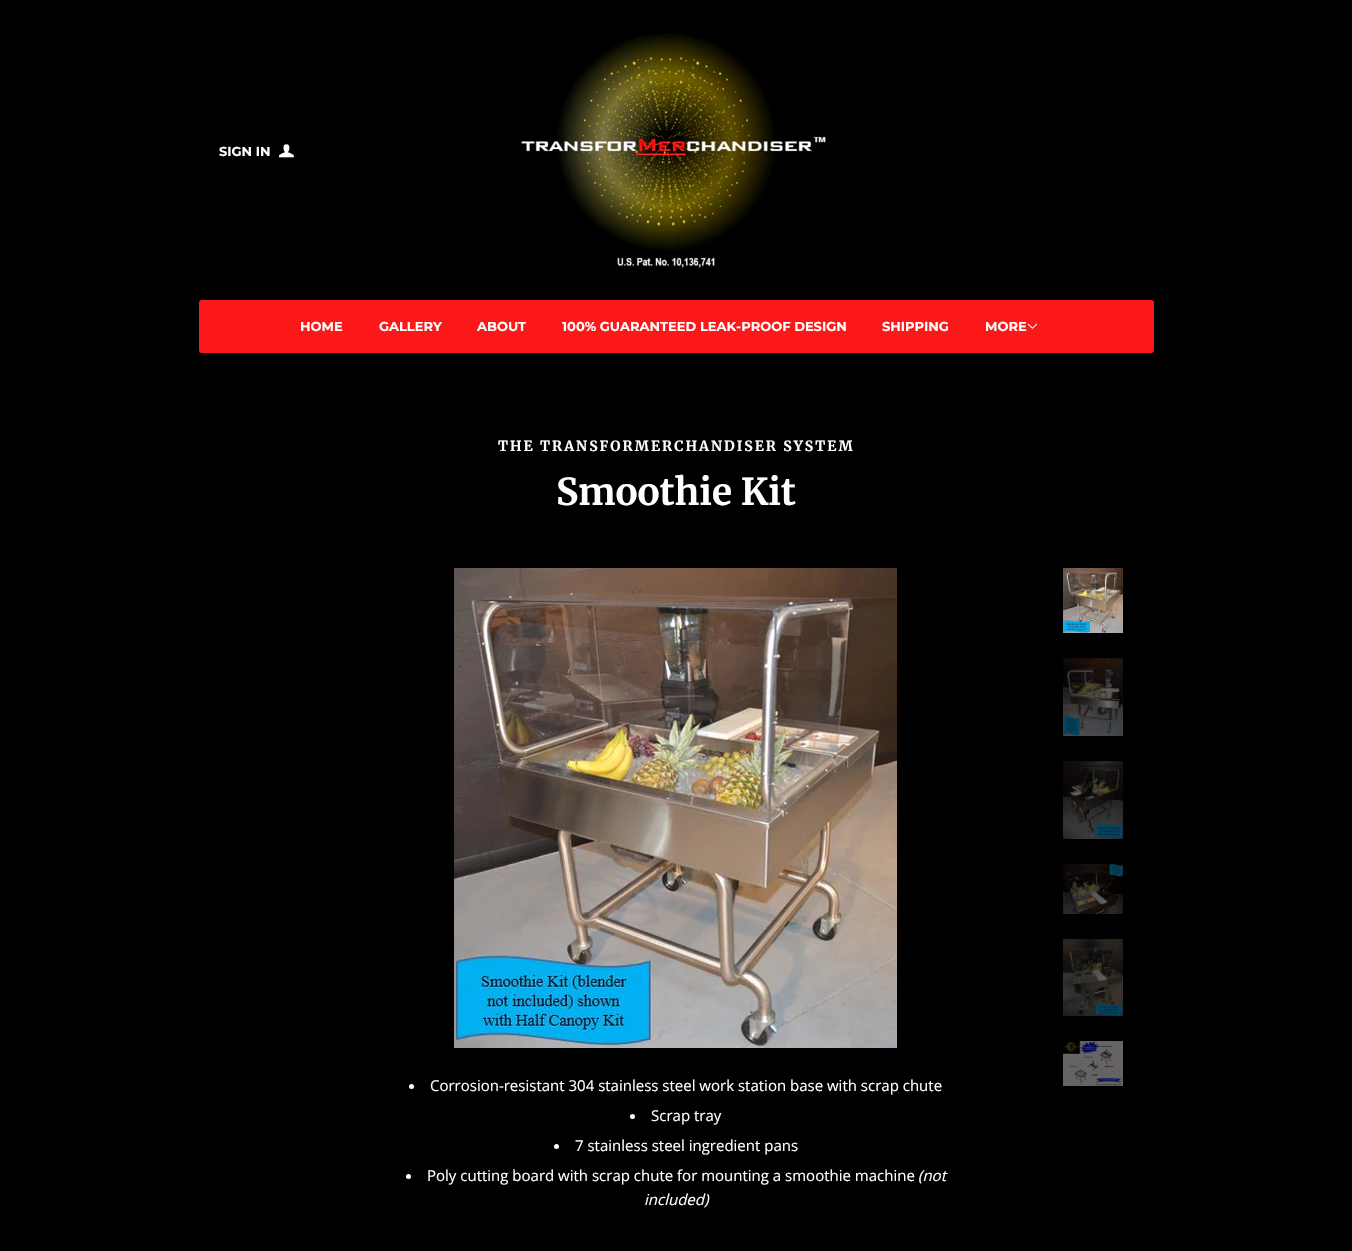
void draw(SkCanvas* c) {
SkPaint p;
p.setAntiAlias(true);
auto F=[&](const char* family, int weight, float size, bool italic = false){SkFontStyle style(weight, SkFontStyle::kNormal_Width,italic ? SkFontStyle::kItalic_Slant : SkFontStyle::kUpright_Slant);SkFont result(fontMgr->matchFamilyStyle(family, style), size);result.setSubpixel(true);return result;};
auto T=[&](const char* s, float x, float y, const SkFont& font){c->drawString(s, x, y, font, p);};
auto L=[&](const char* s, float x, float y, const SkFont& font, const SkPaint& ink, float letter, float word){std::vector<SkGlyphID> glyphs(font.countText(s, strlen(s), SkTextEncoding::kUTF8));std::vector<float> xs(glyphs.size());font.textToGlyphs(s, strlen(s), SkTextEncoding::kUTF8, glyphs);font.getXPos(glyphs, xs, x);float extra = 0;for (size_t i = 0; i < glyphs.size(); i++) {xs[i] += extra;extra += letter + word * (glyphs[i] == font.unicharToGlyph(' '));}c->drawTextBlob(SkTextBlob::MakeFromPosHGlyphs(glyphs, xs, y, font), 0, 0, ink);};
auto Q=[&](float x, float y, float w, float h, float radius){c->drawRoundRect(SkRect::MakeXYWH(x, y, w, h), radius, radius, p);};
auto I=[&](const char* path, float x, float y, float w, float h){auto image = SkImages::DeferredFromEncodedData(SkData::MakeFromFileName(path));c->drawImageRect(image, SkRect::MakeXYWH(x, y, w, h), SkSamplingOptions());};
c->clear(0xff000000);
auto f1 = F("Montserrat",100,13);
p.setColor(0xffffffff);
T("SIGN IN",219,156,f1);
I("1.png",279,144,15,14);
I("2.png",521,33,306,235);
p.setColor(0xfffc1818);
Q(199,300,955,53,3);
p.setColor(0xffffffff);
T("HOME",300,331,f1);
T("GALLERY",379,331,f1);
T("ABOUT",477,331,f1);
T("100% GUARANTEED LEAK-PROOF DESIGN",562,331,f1);
T("SHIPPING",882,331,f1);
T("MORE",985,331,f1);
I("3.png",1027,323,10,6);
auto f2 = F("Merriweather",300,14);
L("THE TRANSFORMERCHANDISER SYSTEM",498,451,f2,p,2,0);
auto f3 = F("Merriweather",300,37);
T("Smoothie Kit",556,505,f3);
I("4.png",1063,568,60,65);
I("5.png",1063,658,60,78);
I("6.png",1063,761,60,78);
I("7.png",1063,864,60,50);
I("8.png",1063,939,60,77);
I("9.png",1063,1041,60,45);
I("10.png",454,568,443,480);
c->drawCircle(411.5,1086.5,2.5,p);
auto f4 = F("Open Sans",400,15);
T("Corrosion-resistant 304 stainless steel work station base with scrap chute",430,1091,f4);
c->drawCircle(632.5,1116.5,2.5,p);
T("Scrap tray",651,1121,f4);
c->drawCircle(556.5,1146.5,2.5,p);
T("7 stainless steel ingredient pans",575,1151,f4);
c->drawCircle(408.5,1176.5,2.5,p);
T("Poly cutting board with scrap chute for mounting a smoothie machine",427,1181,f4);
auto f5 = F("Open Sans",400,15,true);
T("(not",918,1181,f5);
T("included)",644,1205,f5);
}
